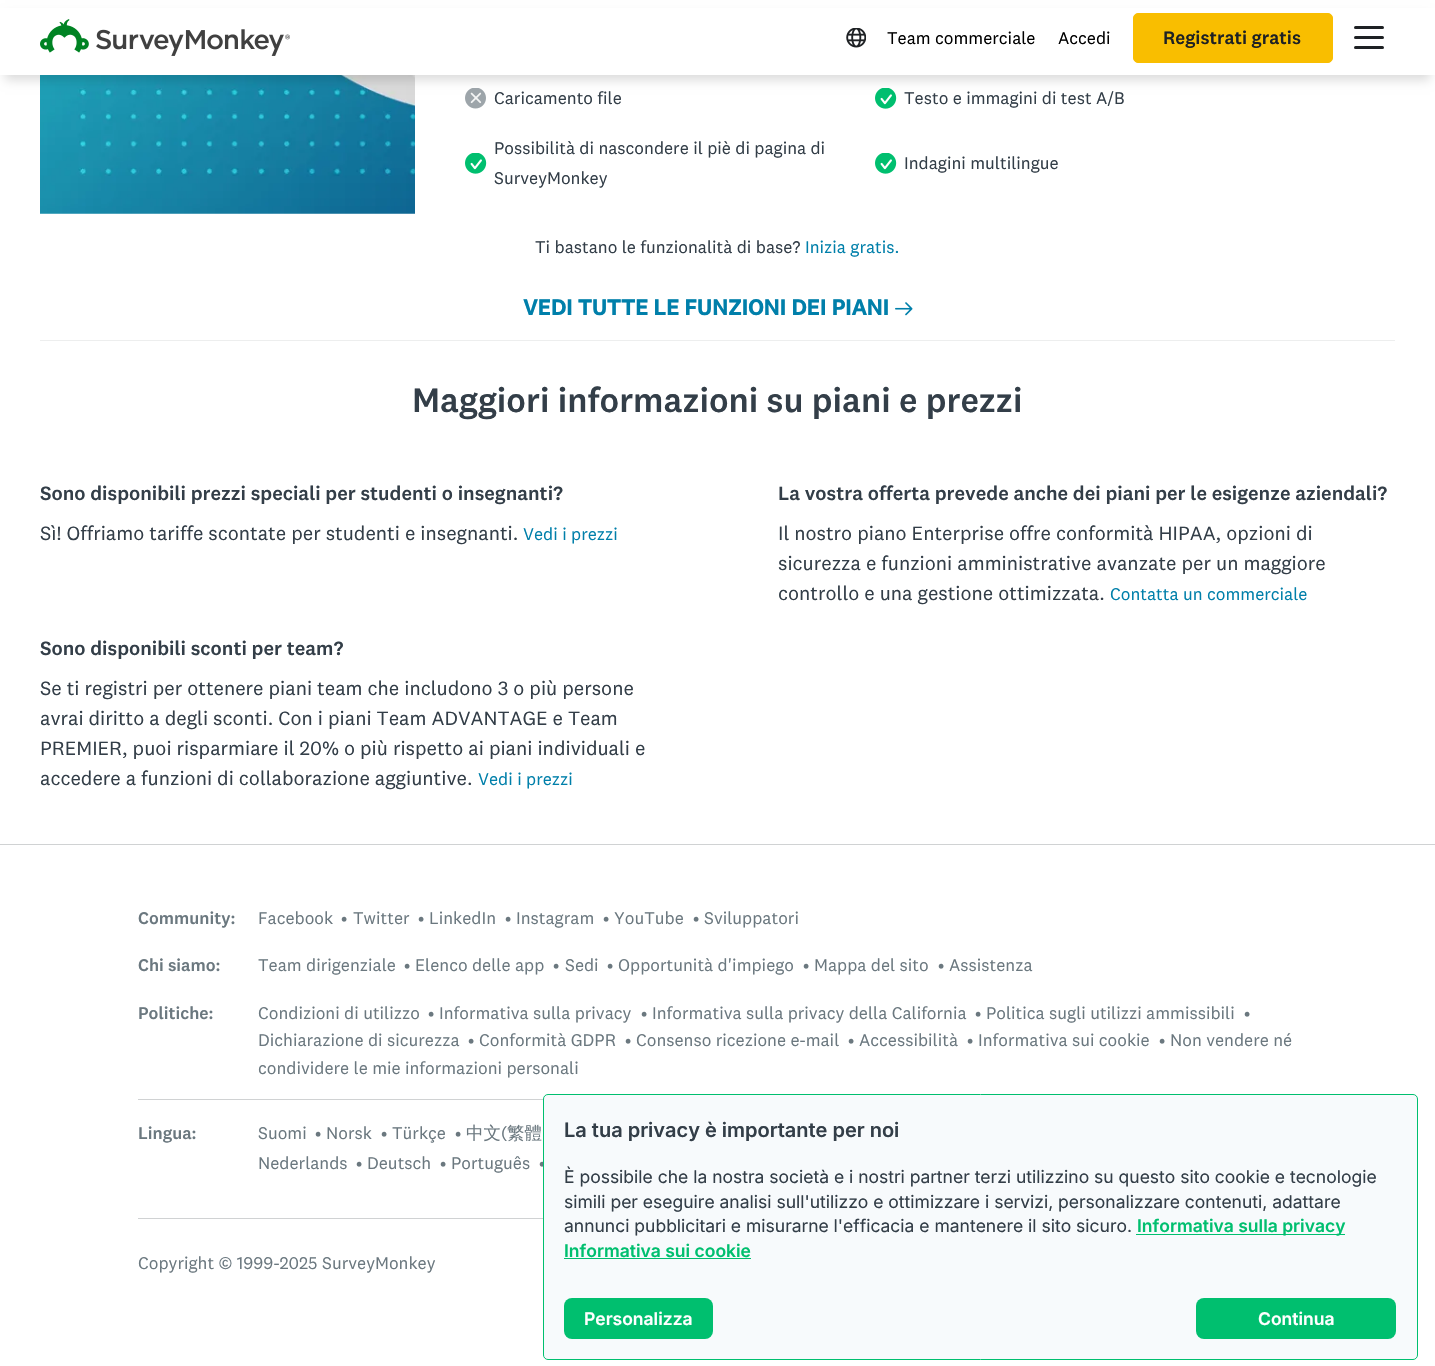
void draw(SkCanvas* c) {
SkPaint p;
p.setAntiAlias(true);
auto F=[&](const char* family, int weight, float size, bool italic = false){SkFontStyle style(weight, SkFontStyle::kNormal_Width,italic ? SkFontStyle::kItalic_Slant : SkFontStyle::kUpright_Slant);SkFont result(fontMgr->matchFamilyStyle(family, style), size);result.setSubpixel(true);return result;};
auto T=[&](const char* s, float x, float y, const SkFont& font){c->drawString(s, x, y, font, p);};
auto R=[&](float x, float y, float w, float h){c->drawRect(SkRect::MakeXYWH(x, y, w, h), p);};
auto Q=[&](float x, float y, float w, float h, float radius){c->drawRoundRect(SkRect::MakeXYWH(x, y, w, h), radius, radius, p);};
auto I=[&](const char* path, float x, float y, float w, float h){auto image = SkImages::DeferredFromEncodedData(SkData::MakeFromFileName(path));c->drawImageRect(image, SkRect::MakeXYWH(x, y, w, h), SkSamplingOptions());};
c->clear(0xffffffff);
I("3.png",40,75,375,139);
I("4.png",465,88,21,21);
I("5.png",875,88,22,21);
p.setColor(0x24000000);
p.setMaskFilter(SkMaskFilter::MakeBlur(kNormal_SkBlurStyle, 5));
c->drawRect(SkRect::MakeXYWH(5,15,1425,65),p);
p.setMaskFilter(nullptr);
p.setColor(0xffffffff);
R(0,8,1435,67);
I("1.png",40,19,250,37);
I("2.png",846,28,20,20);
auto f1 = F("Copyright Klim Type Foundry",400,17.5);
p.setColor(0xff000000);
T("Team commerciale",887,44,f1);
T("Accedi",1058,44,f1);
p.setColor(0xfff9be00);
c->drawRoundRect(SkRect::MakeXYWH(1133.5,13.5,199,49),4.5,4.5,p);
p.setStroke(true);
p.setStrokeWidth(1);
c->drawRoundRect(SkRect::MakeXYWH(1133.5,13.5,199,49),4.5,4.5,p);
auto f2 = F("Copyright Klim Type Foundry",500,18.75);
p.setStroke(false);
p.setColor(0xff1e2124);
T("Registrati gratis",1163,44,f2);
Q(1354,36,30,3,1.5);
Q(1354,26,30,3,1.5);
Q(1354,46,30,3,1.5);
p.setColor(0xff333e48);
T("Caricamento file",494,104,f1);
T("Testo e immagini di test A/B",904,104,f1);
I("5.png",465,153,22,21);
T("Possibilità di nascondere il piè di pagina di",494,154,f1);
T("SurveyMonkey",494,184,f1);
I("5.png",875,153,22,21);
T("Indagini multilingue",904,169,f1);
T("Ti bastano le funzionalità di base?",535,253,f1);
p.setColor(0xff007faa);
T("Inizia gratis.",805,253,f1);
auto f3 = F("Copyright Klim Type Foundry",700,22.5);
T("VEDI TUTTE LE FUNZIONI DEI PIANI",523,315,f3);
I("6.png",895,302,18,14);
p.setColor(0xffedeeee);
R(40,340,1355,1);
auto f4 = F("Copyright Klim Type Foundry",500,35);
p.setColor(0xff333e48);
T("Maggiori informazioni su piani e prezzi",412,412,f4);
auto f5 = F("Copyright Klim Type Foundry",500,20);
T("Sono disponibili prezzi speciali per studenti o insegnanti?",40,500,f5);
auto f6 = F("Copyright Klim Type Foundry",400,20);
T("Sì! Offriamo tariffe scontate per studenti e insegnanti.",40,540,f6);
p.setColor(0xff007faa);
T("Vedi i prezzi",523,540,f1);
p.setColor(0xff333e48);
T("La vostra offerta prevede anche dei piani per le esigenze aziendali?",778,500,f5);
T("Il nostro piano Enterprise offre conformità HIPAA, opzioni di",778,540,f6);
T("sicurezza e funzioni amministrative avanzate per un maggiore",778,570,f6);
T("controllo e una gestione ottimizzata.",778,600,f6);
p.setColor(0xff007faa);
T("Contatta un commerciale",1110,600,f1);
p.setColor(0xff333e48);
T("Sono disponibili sconti per team?",40,655,f5);
T("Se ti registri per ottenere piani team che includono 3 o più persone",40,695,f6);
T("avrai diritto a degli sconti. Con i piani Team ADVANTAGE e Team",40,725,f6);
T("PREMIER, puoi risparmiare il 20% o più rispetto ai piani individuali e",40,755,f6);
T("accedere a funzioni di collaborazione aggiuntive.",40,785,f6);
p.setColor(0xff007faa);
T("Vedi i prezzi",478,785,f1);
p.setColor(0xffd0d2d3);
R(0,844,1435,1);
R(138,1099,405,1);
auto f7 = F("Copyright Klim Type Foundry",500,17.5);
p.setColor(0xff6b787f);
T("Community:",138,924,f7);
T("Facebook",258,924,f1);
T("•",341,924,f1);
T("Twitter",353,924,f1);
T("•",418,924,f1);
T("LinkedIn",429,924,f1);
T("•",505,924,f1);
T("Instagram",516,924,f1);
T("•",603,924,f1);
T("YouTube",614,924,f1);
T("•",693,924,f1);
T("Sviluppatori",704,924,f1);
T("Chi siamo:",138,971,f7);
T("Team dirigenziale",258,971,f1);
T("•",404,971,f1);
T("Elenco delle app",415,971,f1);
T("•",553,971,f1);
T("Sedi",565,971,f1);
T("•",607,971,f1);
T("Opportunità d'impiego",618,971,f1);
T("•",803,971,f1);
T("Mappa del sito",814,971,f1);
T("•",938,971,f1);
T("Assistenza",949,971,f1);
T("Politiche:",138,1019,f7);
T("Condizioni di utilizzo",258,1019,f1);
T("•",428,1019,f1);
T("Informativa sulla privacy",439,1019,f1);
T("•",641,1019,f1);
T("Informativa sulla privacy della California",652,1019,f1);
T("•",975,1019,f1);
T("Politica sugli utilizzi ammissibili",986,1019,f1);
T("•",1244,1019,f1);
T("Dichiarazione di sicurezza",258,1046,f1);
T("•",468,1046,f1);
T("Conformità GDPR",479,1046,f1);
T("•",625,1046,f1);
T("Consenso ricezione e-mail",636,1046,f1);
T("•",848,1046,f1);
T("Accessibilità",859,1046,f1);
T("•",967,1046,f1);
T("Informativa sui cookie",978,1046,f1);
T("•",1159,1046,f1);
T("Non vendere né",1170,1046,f1);
T("condividere le mie informazioni personali",258,1074,f1);
p.setColor(0xffd0d2d3);
R(138,1218,405,1);
p.setColor(0xff6b787f);
T("Lingua:",138,1139,f7);
T("Suomi",258,1139,f1);
T("•",315,1139,f1);
T("Norsk",326,1139,f1);
T("•",381,1139,f1);
T("Türkçe",392,1139,f1);
T("•",455,1139,f1);
auto f8 = F("WenQuanYi Zen Hei",500,17.5);
T("中文",466,1139,f8);
T("(",501,1139,f1);
T("繁體",507,1139,f8);
T("Nederlands",258,1169,f1);
T("•",356,1169,f1);
T("Deutsch",367,1169,f1);
T("•",440,1169,f1);
T("Português",451,1169,f1);
T("•",539,1169,f1);
T("Copyright © 1999-2025 SurveyMonkey",138,1269,f1);
p.setColor(0xfff7fafc);
c->drawRoundRect(SkRect::MakeXYWH(543.5,1094.5,874,265),4.5,4.5,p);
p.setStroke(true);
p.setColor(0xff00bf6f);
c->drawRoundRect(SkRect::MakeXYWH(543.5,1094.5,874,265),4.5,4.5,p);
auto f9 = F("Inter",600,20);
p.setStroke(false);
p.setColor(0xff333e48);
T("La tua privacy è importante per noi",564,1137,f9);
auto f10 = F("Inter",400,17.5);
T("È possibile che la nostra società e i nostri partner terzi utilizzino su questo sito cookie e tecnologie",564,1183,f10);
T("simili per eseguire analisi sull'utilizzo e ottimizzare i servizi, personalizzare contenuti, adattare",564,1208,f10);
T("annunci pubblicitari e misurarne l'efficacia e mantenere il sito sicuro.",564,1232,f10);
p.setColor(0xff00bf6f);
R(1136,1234,209,1);
auto f11 = F("Inter",600,17.5);
T("Informativa sulla privacy",1137,1232,f11);
T("Informativa sui cookie",564,1257,f11);
R(564,1258,187,1);
Q(564,1298,149,41,8);
p.setColor(0xffffffff);
T("Personalizza",584,1325,f11);
p.setColor(0xff00bf6f);
Q(1196,1298,200,41,8);
p.setColor(0xffffffff);
T("Continua",1258,1325,f11);
}
